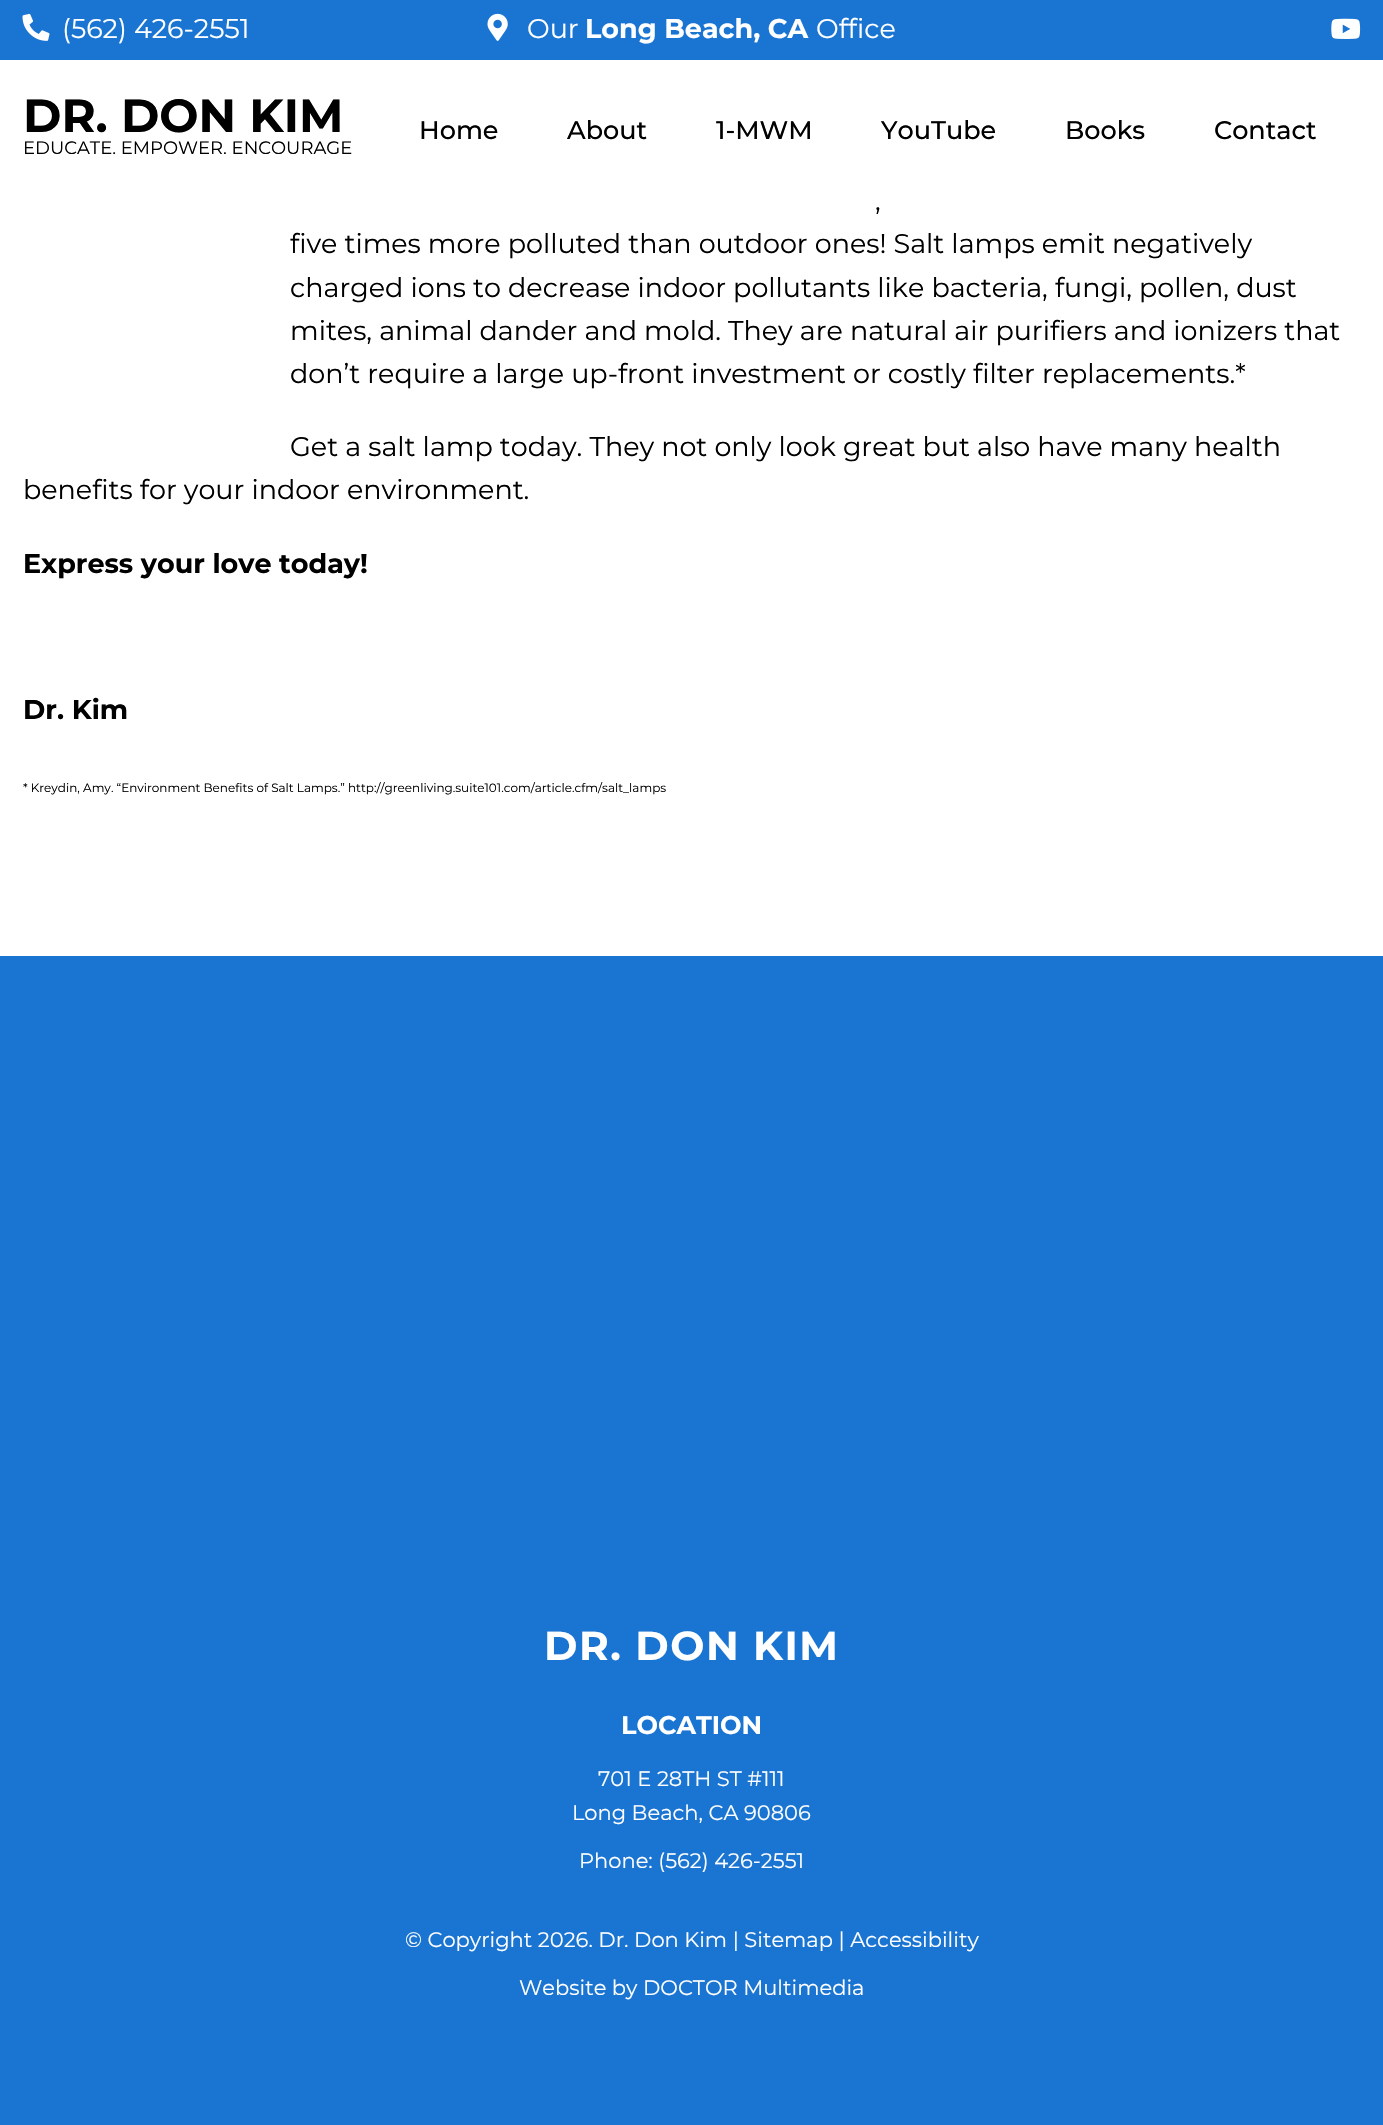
void draw(SkCanvas* c) {
SkPaint p;
p.setAntiAlias(true);
auto F=[&](const char* family, int weight, float size, bool italic = false){SkFontStyle style(weight, SkFontStyle::kNormal_Width,italic ? SkFontStyle::kItalic_Slant : SkFontStyle::kUpright_Slant);SkFont result(fontMgr->matchFamilyStyle(family, style), size);result.setSubpixel(true);return result;};
auto T=[&](const char* s, float x, float y, const SkFont& font){c->drawString(s, x, y, font, p);};
auto L=[&](const char* s, float x, float y, const SkFont& font, const SkPaint& ink, float letter, float word){std::vector<SkGlyphID> glyphs(font.countText(s, strlen(s), SkTextEncoding::kUTF8));std::vector<float> xs(glyphs.size());font.textToGlyphs(s, strlen(s), SkTextEncoding::kUTF8, glyphs);font.getXPos(glyphs, xs, x);float extra = 0;for (size_t i = 0; i < glyphs.size(); i++) {xs[i] += extra;extra += letter + word * (glyphs[i] == font.unicharToGlyph(' '));}c->drawTextBlob(SkTextBlob::MakeFromPosHGlyphs(glyphs, xs, y, font), 0, 0, ink);};
auto R=[&](float x, float y, float w, float h){c->drawRect(SkRect::MakeXYWH(x, y, w, h), p);};
auto I=[&](const char* path, float x, float y, float w, float h){auto image = SkImages::DeferredFromEncodedData(SkData::MakeFromFileName(path));c->drawImageRect(image, SkRect::MakeXYWH(x, y, w, h), SkSamplingOptions());};
c->clear(0xffffffff);
p.setColor(0xff1974d2);
R(0,0,1383,60);
I("1.png",22,13,28,28);
auto f1 = F("Montserrat",400,27);
p.setColor(0xffffffff);
T("(562) 426-2551",62,38,f1);
I("2.png",487,13,21,28);
T("Our",527,38,f1);
auto f2 = F("Montserrat",700,27);
T("Long Beach, CA",585,38,f2);
T("Office",816,38,f1);
I("3.png",1331,18,30,21);
auto f3 = F("Montserrat",700,46.5);
p.setColor(0xff000000);
T("DR. DON KIM",23,132,f3);
auto f4 = F("Montserrat",400,18);
T("EDUCATE. EMPOWER. ENCOURAGE",23,154,f4);
auto f5 = F("Montserrat",500,25.5);
T("Home",419,139,f5);
T("About",567,139,f5);
T("1-MWM",716,139,f5);
T("YouTube",881,139,f5);
T("Books",1065,139,f5);
T("Contact",1214,139,f5);
T(",",875,210,f1);
T("five times more polluted than outdoor ones! Salt lamps emit negatively",290,253,f1);
T("charged ions to decrease indoor pollutants like bacteria, fungi, pollen, dust",290,297,f1);
T("mites, animal dander and mold. They are natural air purifiers and ionizers that",290,340,f1);
T("don’t require a large up-front investment or costly filter replacements.*",290,383,f1);
T("Get a salt lamp today. They not only look great but also have many health",290,456,f1);
T("benefits for your indoor environment.",23,499,f1);
T("Express your love today!",23,573,f2);
T("Dr. Kim",23,719,f2);
auto f6 = F("Montserrat",400,12);
T("* Kreydin, Amy. “Environment Benefits of Salt Lamps.” http://greenliving.suite101.com/article.cfm/salt_lamps",23,792,f6);
p.setColor(0xff1974d2);
R(0,956,1383,1169);
auto f7 = F("Montserrat",700,40.5);
p.setColor(0xffffffff);
L("DR. DON KIM",544,1660,f7,p,1.5,0);
auto f8 = F("Montserrat",700,25.5);
T("LOCATION",621,1734,f8);
auto f9 = F("Montserrat",400,21);
T("701 E 28TH ST #111",598,1786,f9);
T("Long Beach, CA 90806",572,1820,f9);
T("Phone: (562) 426-2551",579,1868,f9);
T("© Copyright 2026. Dr. Don Kim | Sitemap | Accessibility",405,1947,f9);
T("Website by DOCTOR Multimedia",519,1995,f9);
}
